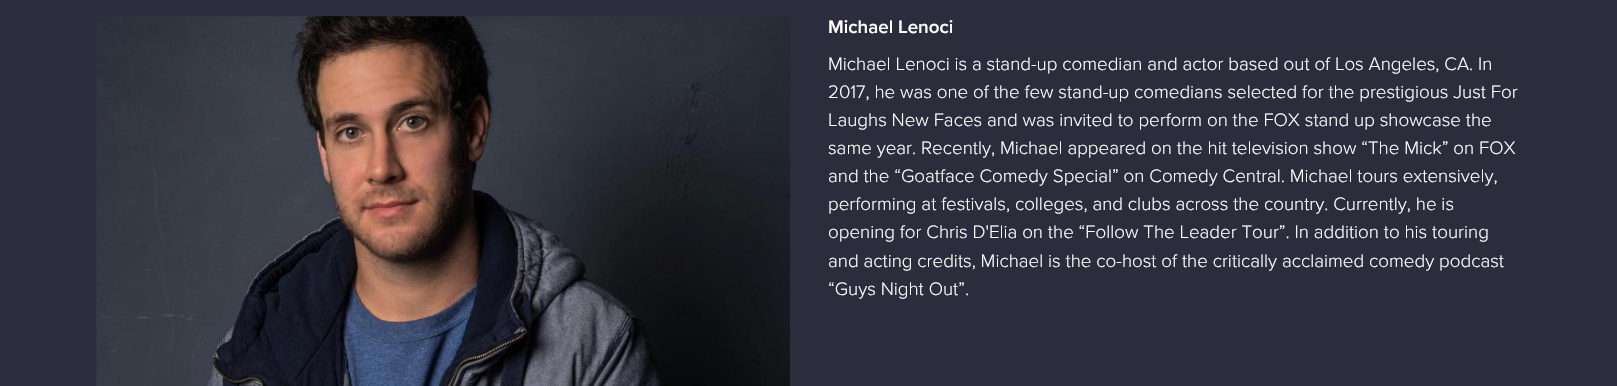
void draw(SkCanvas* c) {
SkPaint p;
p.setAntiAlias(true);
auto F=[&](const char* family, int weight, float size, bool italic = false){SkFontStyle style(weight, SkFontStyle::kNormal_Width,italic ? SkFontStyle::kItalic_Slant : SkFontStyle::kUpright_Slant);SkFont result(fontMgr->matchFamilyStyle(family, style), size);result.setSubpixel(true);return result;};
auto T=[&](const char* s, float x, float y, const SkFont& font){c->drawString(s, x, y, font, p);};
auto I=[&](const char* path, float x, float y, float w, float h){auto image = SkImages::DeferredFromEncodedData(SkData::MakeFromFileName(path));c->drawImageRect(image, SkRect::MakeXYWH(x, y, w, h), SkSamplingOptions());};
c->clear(0xff2b2d3c);
I("1.png",96,16,694,370);
auto f1 = F("Proxima Nova",600,18.75);
p.setColor(0xffffffff);
T("Michael Lenoci",828,33,f1);
auto f2 = F("Proxima Nova",300,18.75);
T("Michael Lenoci is a stand-up comedian and actor based out of Los Angeles, CA. In",828,70,f2);
T("2017, he was one of the few stand-up comedians selected for the prestigious Just For",828,98,f2);
T("Laughs New Faces and was invited to perform on the FOX stand up showcase the",828,126,f2);
T("same year. Recently, Michael appeared on the hit television show “The Mick” on FOX",828,154,f2);
T("and the “Goatface Comedy Special” on Comedy Central. Michael tours extensively,",828,182,f2);
T("performing at festivals, colleges, and clubs across the country. Currently, he is",828,210,f2);
T("opening for Chris D'Elia on the “Follow The Leader Tour”. In addition to his touring",828,238,f2);
T("and acting credits, Michael is the co-host of the critically acclaimed comedy podcast",828,267,f2);
T("“Guys Night Out”.",828,295,f2);
}
